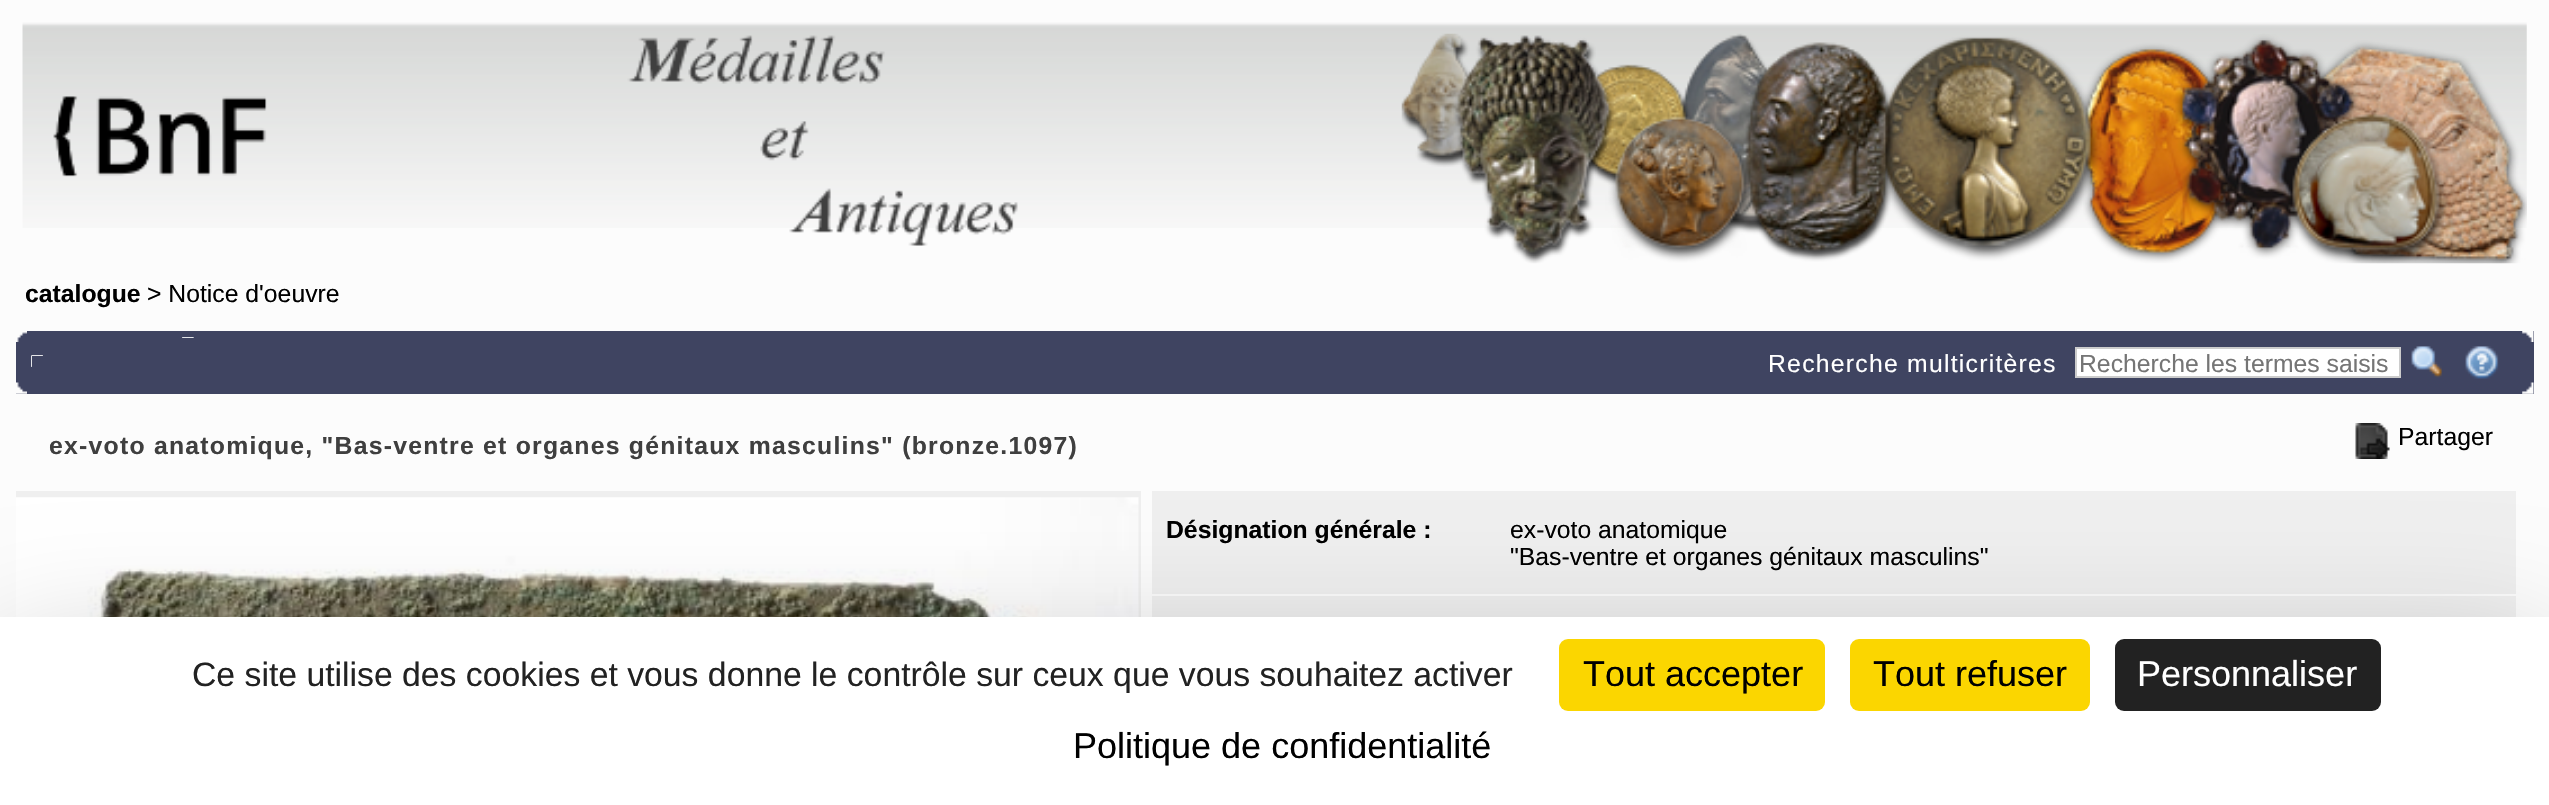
void draw(SkCanvas* c) {
SkPaint p;
p.setAntiAlias(true);
auto F=[&](const char* family, int weight, float size, bool italic = false){SkFontStyle style(weight, SkFontStyle::kNormal_Width,italic ? SkFontStyle::kItalic_Slant : SkFontStyle::kUpright_Slant);SkFont result(fontMgr->matchFamilyStyle(family, style), size);result.setSubpixel(true);return result;};
auto T=[&](const char* s, float x, float y, const SkFont& font){c->drawString(s, x, y, font, p);};
auto L=[&](const char* s, float x, float y, const SkFont& font, const SkPaint& ink, float letter, float word){std::vector<SkGlyphID> glyphs(font.countText(s, strlen(s), SkTextEncoding::kUTF8));std::vector<float> xs(glyphs.size());font.textToGlyphs(s, strlen(s), SkTextEncoding::kUTF8, glyphs);font.getXPos(glyphs, xs, x);float extra = 0;for (size_t i = 0; i < glyphs.size(); i++) {xs[i] += extra;extra += letter + word * (glyphs[i] == font.unicharToGlyph(' '));}c->drawTextBlob(SkTextBlob::MakeFromPosHGlyphs(glyphs, xs, y, font), 0, 0, ink);};
auto R=[&](float x, float y, float w, float h){c->drawRect(SkRect::MakeXYWH(x, y, w, h), p);};
auto Q=[&](float x, float y, float w, float h, float radius){c->drawRoundRect(SkRect::MakeXYWH(x, y, w, h), radius, radius, p);};
auto I=[&](const char* path, float x, float y, float w, float h){auto image = SkImages::DeferredFromEncodedData(SkData::MakeFromFileName(path));c->drawImageRect(image, SkRect::MakeXYWH(x, y, w, h), SkSamplingOptions());};
c->clear(0xfffcfcfc);
I("1.png",22,22,2505,206);
I("2.png",53,35,965,211);
I("3.png",1401,33,1126,231);
auto f1 = F("Liberation Sans",700,24.75);
p.setColor(0xff000000);
T("catalogue",25,302,f1);
auto f2 = F("Liberation Sans",400,24.75);
T("> Notice d'oeuvre",147,302,f2);
p.setColor(0xff3f4461);
R(16,331,2518,63);
I("4.png",16,331,11,11);
I("5.png",2522,331,12,11);
I("6.png",16,382,11,12);
I("7.png",31,355,12,12);
I("8.png",31,355,12,12);
I("9.png",31,355,12,12);
R(32,356,11,11);
I("10.png",2522,382,12,12);
I("11.png",182,337,12,1);
I("12.png",182,337,12,1);
I("13.png",182,337,12,1);
p.setColor(0xffffffff);
L("Recherche multicritères",1768,372,f2,p,1.25,0);
c->drawRect(SkRect::MakeXYWH(2076,348,324,29),p);
p.setStroke(true);
p.setStrokeWidth(2);
p.setColor(0xffcccccc);
c->drawRect(SkRect::MakeXYWH(2076,348,324,29),p);
p.setStroke(false);
p.setColor(0xff757575);
T("Recherche les termes saisis",2079,372,f2);
I("14.png",2411,346,31,32);
I("15.png",2465,346,34,33);
I("16.png",2522,393,12,1);
p.setColor(0xff3f3f3f);
L("ex-voto anatomique, \"Bas-ventre et organes génitaux masculins\" (bronze.1097)",49,454,f1,p,1.25,0);
I("17.png",2355,423,35,36);
p.setColor(0xff000000);
T("Partager",2398,445,f2);
p.setColor(0xffefefef);
R(16,491,1125,126);
I("18.png",16,497,1123,120);
R(1152,491,1364,126);
p.setColor(0xff000000);
T("Désignation générale :",1166,538,f1);
T("ex-voto anatomique",1510,538,f2);
T("\"Bas-ventre et organes génitaux masculins\"",1510,565,f2);
p.setColor(0xfffcfcfc);
R(1152,594,1364,2);
p.setColor(0x40000000);
p.setMaskFilter(SkMaskFilter::MakeBlur(kNormal_SkBlurStyle, 67.5));
c->drawRect(SkRect::MakeXYWH(0,662,2549,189),p);
p.setMaskFilter(nullptr);
p.setColor(0xffffffff);
R(0,617,2549,188);
auto f3 = F("Liberation Sans",400,33.75);
p.setColor(0xff222222);
T("Ce site utilise des cookies et vous donne le contrôle sur ceux que vous souhaitez activer",192,686,f3);
p.setColor(0xfffbd600);
Q(1559,639,266,72,9);
auto f4 = F("Liberation Sans",400,36);
p.setColor(0xff000000);
T("Tout accepter",1583,686,f4);
p.setColor(0xfffbd600);
Q(1850,639,240,72,9);
p.setColor(0xff000000);
T("Tout refuser",1873,686,f4);
p.setColor(0xff222222);
Q(2115,639,266,72,9);
p.setColor(0xffffffff);
T("Personnaliser",2137,686,f4);
p.setColor(0xff000000);
T("Politique de confidentialité",1073,758,f4);
}
